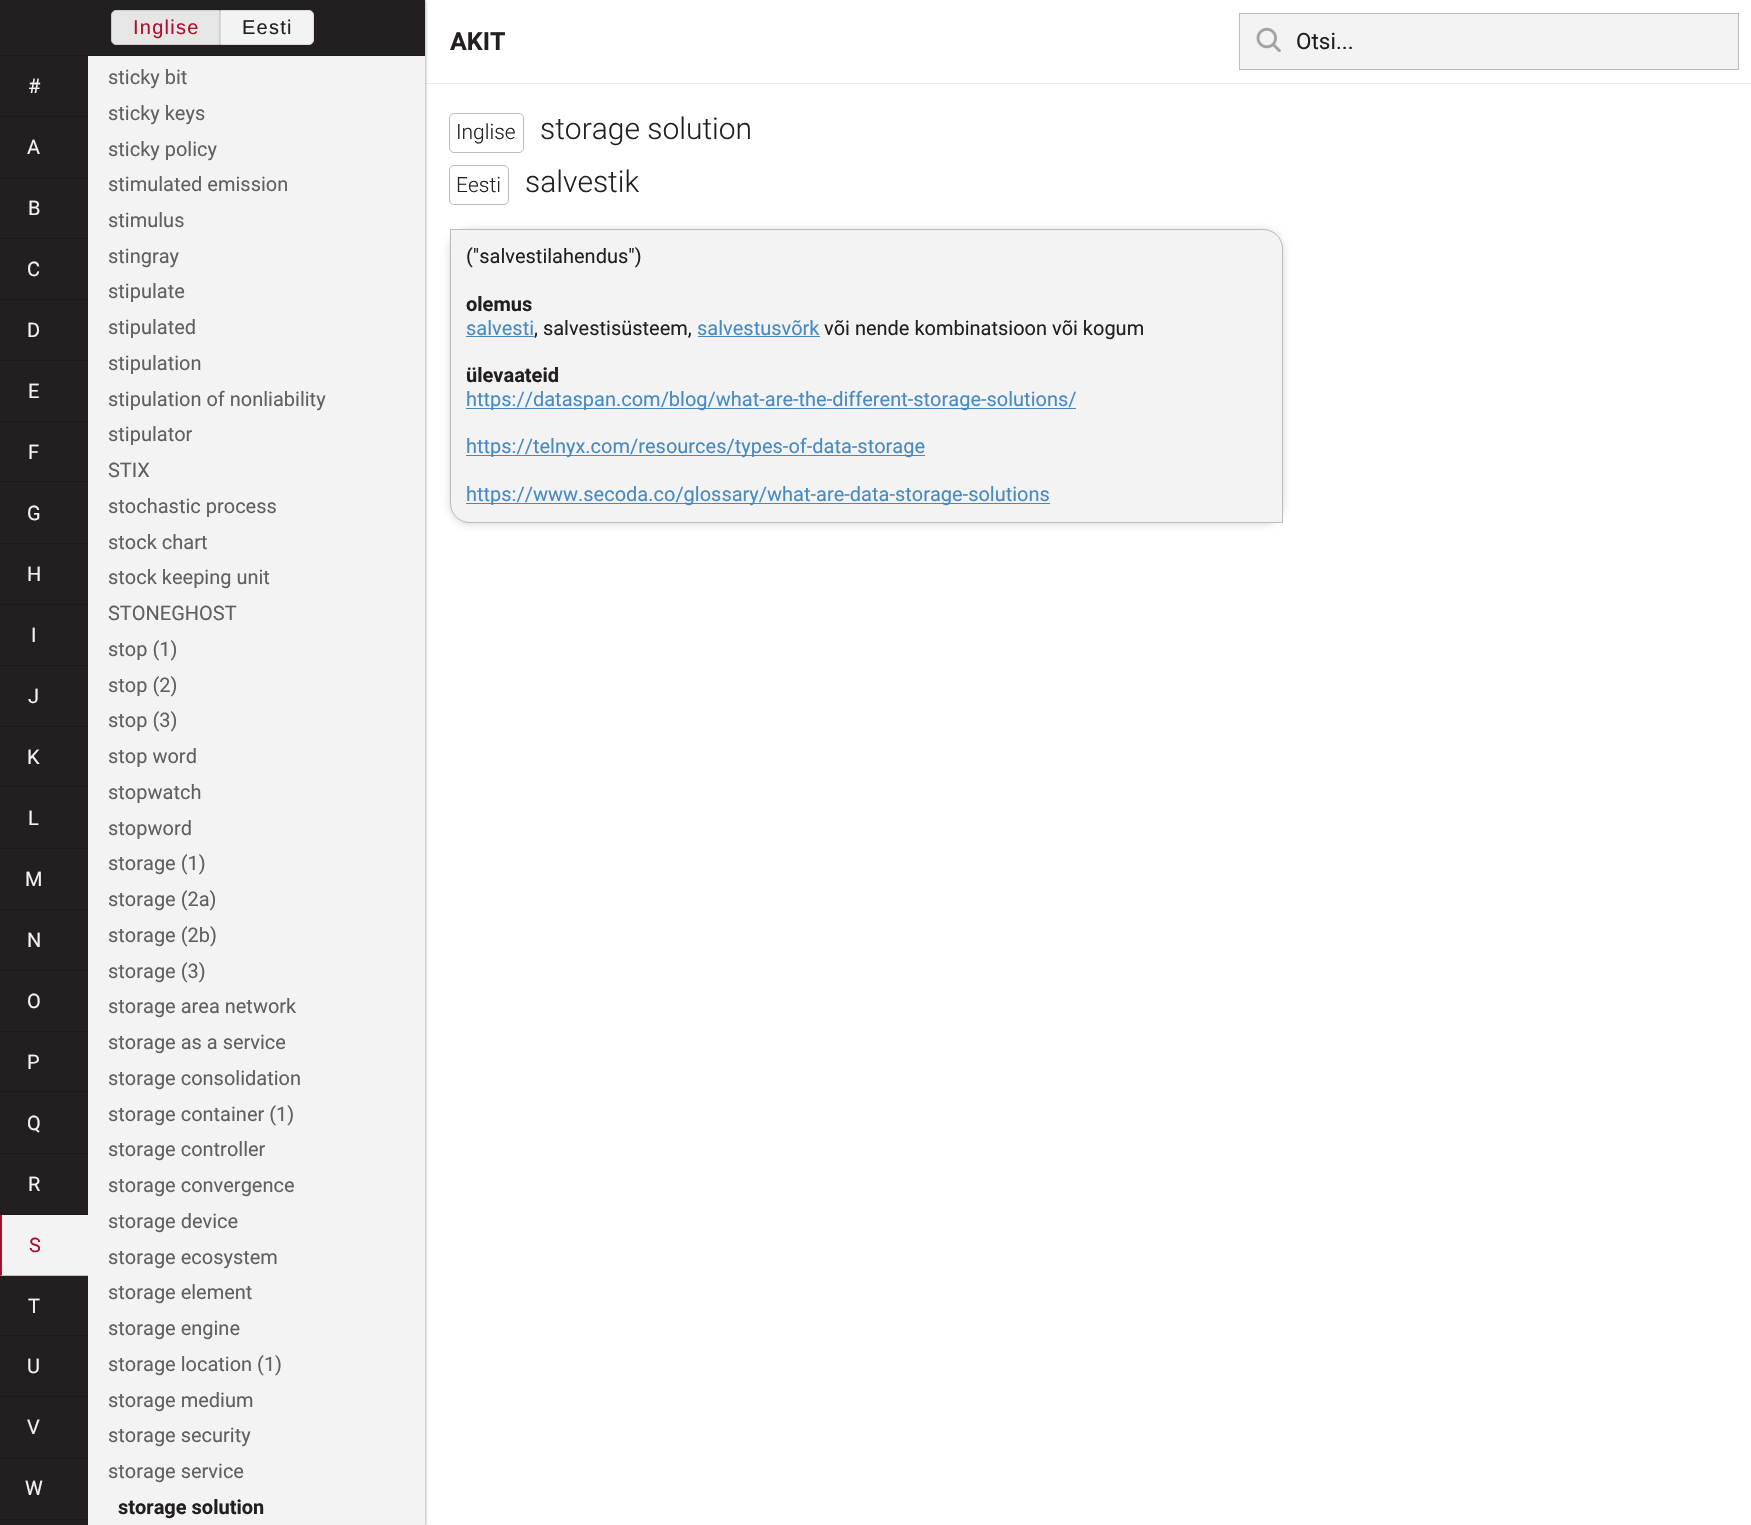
void draw(SkCanvas* c) {
SkPaint p;
p.setAntiAlias(true);
auto F=[&](const char* family, int weight, float size, bool italic = false){SkFontStyle style(weight, SkFontStyle::kNormal_Width,italic ? SkFontStyle::kItalic_Slant : SkFontStyle::kUpright_Slant);SkFont result(fontMgr->matchFamilyStyle(family, style), size);result.setSubpixel(true);return result;};
auto T=[&](const char* s, float x, float y, const SkFont& font){c->drawString(s, x, y, font, p);};
auto L=[&](const char* s, float x, float y, const SkFont& font, const SkPaint& ink, float letter, float word){std::vector<SkGlyphID> glyphs(font.countText(s, strlen(s), SkTextEncoding::kUTF8));std::vector<float> xs(glyphs.size());font.textToGlyphs(s, strlen(s), SkTextEncoding::kUTF8, glyphs);font.getXPos(glyphs, xs, x);float extra = 0;for (size_t i = 0; i < glyphs.size(); i++) {xs[i] += extra;extra += letter + word * (glyphs[i] == font.unicharToGlyph(' '));}c->drawTextBlob(SkTextBlob::MakeFromPosHGlyphs(glyphs, xs, y, font), 0, 0, ink);};
auto R=[&](float x, float y, float w, float h){c->drawRect(SkRect::MakeXYWH(x, y, w, h), p);};
auto I=[&](const char* path, float x, float y, float w, float h){auto image = SkImages::DeferredFromEncodedData(SkData::MakeFromFileName(path));c->drawImageRect(image, SkRect::MakeXYWH(x, y, w, h), SkSamplingOptions());};
auto P=[&](const char* data, bool evenOdd = false){SkPath result = *SkParsePath::FromSVGString(data);if (evenOdd) result.setFillType(SkPathFillType::kEvenOdd);return result;};
c->clear(0xffffffff);
p.setColor(0xffebebeb);
R(425,83,1326,1);
p.setColor(0xcc000000);
p.setMaskFilter(SkMaskFilter::MakeBlur(kNormal_SkBlurStyle, 2));
c->drawRect(SkRect::MakeXYWH(-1,0,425,1525),p);
p.setMaskFilter(nullptr);
p.setColor(0xff231f20);
R(0,0,425,55);
p.setColor(0xff1c191a);
R(0,55,425,1);
p.setColor(0xffe6e6e6);
c->drawPath(P("M116 10.5h103.5v34h-103.5c-2.5 0-4.5-2-4.5-4.5v-25c0-2.5 2-4.5 4.5-4.5z"),p);
p.setStroke(true);
p.setStrokeWidth(1);
p.setColor(0xffcccccc);
c->drawPath(P("M116 10.5h103.5v34h-103.5c-2.5 0-4.5-2-4.5-4.5v-25c0-2.5 2-4.5 4.5-4.5z"),p);
auto f1 = F("Liberation Sans",400,20);
p.setStroke(false);
p.setColor(0xffaa112c);
L("Inglise",133,34,f1,p,1.25,0);
p.setColor(0xfff3f3f3);
c->drawPath(P("M220.5 10.5h88.5c2.5 0 4.5 2 4.5 4.5v25c0 2.5-2 4.5-4.5 4.5h-88.5z"),p);
p.setStroke(true);
p.setColor(0xffd9d9d9);
c->drawPath(P("M220.5 10.5h88.5c2.5 0 4.5 2 4.5 4.5v25c0 2.5-2 4.5-4.5 4.5h-88.5z"),p);
p.setStroke(false);
p.setColor(0xff231f20);
L("Eesti",242,34,f1,p,1.25,0);
R(0,56,88,1469);
p.setColor(0xff1c191a);
R(0,116,88,1);
auto f2 = F("Roboto",400,20);
p.setColor(0xfff3f3f3);
T("#",28,93,f2);
p.setColor(0xff1c191a);
R(0,178,88,1);
p.setColor(0xfff3f3f3);
T("A",27,154,f2);
p.setColor(0xff1c191a);
R(0,238,88,1);
p.setColor(0xfff3f3f3);
T("B",28,215,f2);
p.setColor(0xff1c191a);
R(0,299,88,1);
p.setColor(0xfff3f3f3);
T("C",27,276,f2);
p.setColor(0xff1c191a);
R(0,360,88,1);
p.setColor(0xfff3f3f3);
T("D",27,337,f2);
p.setColor(0xff1c191a);
R(0,421,88,1);
p.setColor(0xfff3f3f3);
T("E",28,398,f2);
p.setColor(0xff1c191a);
R(0,481,88,1);
p.setColor(0xfff3f3f3);
T("F",28,459,f2);
p.setColor(0xff1c191a);
R(0,543,88,1);
p.setColor(0xfff3f3f3);
T("G",27,520,f2);
p.setColor(0xff1c191a);
R(0,604,88,1);
p.setColor(0xfff3f3f3);
T("H",27,581,f2);
p.setColor(0xff1c191a);
R(0,665,88,1);
p.setColor(0xfff3f3f3);
T("I",31,642,f2);
p.setColor(0xff1c191a);
R(0,726,88,1);
p.setColor(0xfff3f3f3);
T("J",28,703,f2);
p.setColor(0xff1c191a);
R(0,786,88,1);
p.setColor(0xfff3f3f3);
T("K",27,764,f2);
p.setColor(0xff1c191a);
R(0,848,88,1);
p.setColor(0xfff3f3f3);
T("L",28,825,f2);
p.setColor(0xff1c191a);
R(0,909,88,1);
p.setColor(0xfff3f3f3);
T("M",25,886,f2);
p.setColor(0xff1c191a);
R(0,970,88,1);
p.setColor(0xfff3f3f3);
T("N",27,947,f2);
p.setColor(0xff1c191a);
R(0,1031,88,1);
p.setColor(0xfff3f3f3);
T("O",27,1008,f2);
p.setColor(0xff1c191a);
R(0,1091,88,1);
p.setColor(0xfff3f3f3);
T("P",27,1069,f2);
p.setColor(0xff1c191a);
R(0,1153,88,1);
p.setColor(0xfff3f3f3);
T("Q",27,1130,f2);
p.setColor(0xff1c191a);
R(0,1214,88,1);
p.setColor(0xfff3f3f3);
T("R",28,1191,f2);
R(0,1215,88,61);
p.setColor(0xffc2c2c2);
c->drawPath(P("M88 1276h-88l2-1h86z"),p);
p.setColor(0xffaa112c);
c->drawPath(P("M0 1276v-61h2v60z"),p);
T("S",29,1252,f2);
p.setColor(0xff1c191a);
R(0,1335,88,1);
p.setColor(0xfff3f3f3);
T("T",28,1313,f2);
p.setColor(0xff1c191a);
R(0,1396,88,1);
p.setColor(0xfff3f3f3);
T("U",27,1373,f2);
p.setColor(0xff1c191a);
R(0,1458,88,1);
p.setColor(0xfff3f3f3);
T("V",27,1434,f2);
p.setColor(0xff1c191a);
R(0,1519,88,1);
p.setColor(0xfff3f3f3);
T("W",25,1495,f2);
R(88,56,337,1469);
p.setColor(0xff615f5f);
T("sticky bit",108,84,f2);
T("sticky keys",108,120,f2);
T("sticky policy",108,156,f2);
T("stimulated emission",108,191,f2);
T("stimulus",108,227,f2);
T("stingray",108,263,f2);
T("stipulate",108,298,f2);
T("stipulated",108,334,f2);
T("stipulation",108,370,f2);
T("stipulation of nonliability",108,406,f2);
T("stipulator",108,441,f2);
T("STIX",108,477,f2);
T("stochastic process",108,513,f2);
T("stock chart",108,549,f2);
T("stock keeping unit",108,584,f2);
T("STONEGHOST",108,620,f2);
T("stop (1)",108,656,f2);
T("stop (2)",108,692,f2);
T("stop (3)",108,727,f2);
T("stop word",108,763,f2);
T("stopwatch",108,799,f2);
T("stopword",108,835,f2);
T("storage (1)",108,870,f2);
T("storage (2a)",108,906,f2);
T("storage (2b)",108,942,f2);
T("storage (3)",108,978,f2);
T("storage area network",108,1013,f2);
T("storage as a service",108,1049,f2);
T("storage consolidation",108,1085,f2);
T("storage container (1)",108,1121,f2);
T("storage controller",108,1156,f2);
T("storage convergence",108,1192,f2);
T("storage device",108,1228,f2);
T("storage ecosystem",108,1264,f2);
T("storage element",108,1299,f2);
T("storage engine",108,1335,f2);
T("storage location (1)",108,1371,f2);
T("storage medium",108,1407,f2);
T("storage security",108,1442,f2);
T("storage service",108,1478,f2);
auto f3 = F("Roboto",700,20);
p.setColor(0xff231f20);
T("storage solution",118,1514,f3);
auto f4 = F("Roboto",700,25);
T("AKIT",450,50,f4);
p.setColor(0xfff3f3f3);
c->drawRect(SkRect::MakeXYWH(1239.5,13.5,499,56),p);
p.setStroke(true);
p.setColor(0xffbbbbbb);
c->drawRect(SkRect::MakeXYWH(1239.5,13.5,499,56),p);
I("1.png",1256,27,25,26);
auto f5 = F("Roboto",400,22.5);
p.setStroke(false);
p.setColor(0xff231f20);
T("Otsi...",1296,49,f5);
auto f6 = F("Roboto",300,21);
T("Inglise",456,139,f6);
p.setStroke(true);
p.setColor(0xffbbbbbb);
c->drawRoundRect(SkRect::MakeXYWH(449.5,113.5,74,39),4.5,4.5,p);
auto f7 = F("Roboto",300,30);
p.setStroke(false);
p.setColor(0xff231f20);
T("storage solution",540,139,f7);
T("Eesti",456,192,f6);
p.setStroke(true);
p.setColor(0xffbbbbbb);
c->drawRoundRect(SkRect::MakeXYWH(449.5,165.5,59,39),4.5,4.5,p);
p.setStroke(false);
p.setColor(0xff231f20);
T("salvestik",525,192,f7);
p.setColor(0xcccccccc);
p.setMaskFilter(SkMaskFilter::MakeBlur(kNormal_SkBlurStyle, 4.5));
c->drawRoundRect(SkRect::MakeXYWH(450,230,833,294),20,20,p);
p.setMaskFilter(nullptr);
p.setColor(0xfff3f3f3);
c->drawPath(P("M450.5 229.5h812.5c11 0 19.5 8.5 19.5 19.5v273.5h-812.5c-11 0-19.5-8.5-19.5-19.5z"),p);
p.setStroke(true);
p.setColor(0xffbbbbbb);
c->drawPath(P("M450.5 229.5h812.5c11 0 19.5 8.5 19.5 19.5v273.5h-812.5c-11 0-19.5-8.5-19.5-19.5z"),p);
p.setStroke(false);
p.setColor(0xff231f20);
T("(\"salvestilahendus\")",466,263,f2);
T("olemus",466,311,f3);
p.setColor(0xff4789c2);
T("salvesti",466,335,f2);
R(466,336,68,1);
p.setColor(0xff231f20);
T(", salvestisüsteem,",534,335,f2);
p.setColor(0xff4789c2);
T("salvestusvõrk",697,335,f2);
R(698,336,122,1);
p.setColor(0xff231f20);
T("või nende kombinatsioon või kogum",824,335,f2);
T("ülevaateid",466,382,f3);
p.setColor(0xff4789c2);
R(466,408,610,1);
T("https://dataspan.com/blog/what-are-the-different-storage-solutions/",466,406,f2);
R(466,455,459,1);
T("https://telnyx.com/resources/types-of-data-storage",466,453,f2);
R(466,503,584,1);
T("https://www.secoda.co/glossary/what-are-data-storage-solutions",466,501,f2);
}
